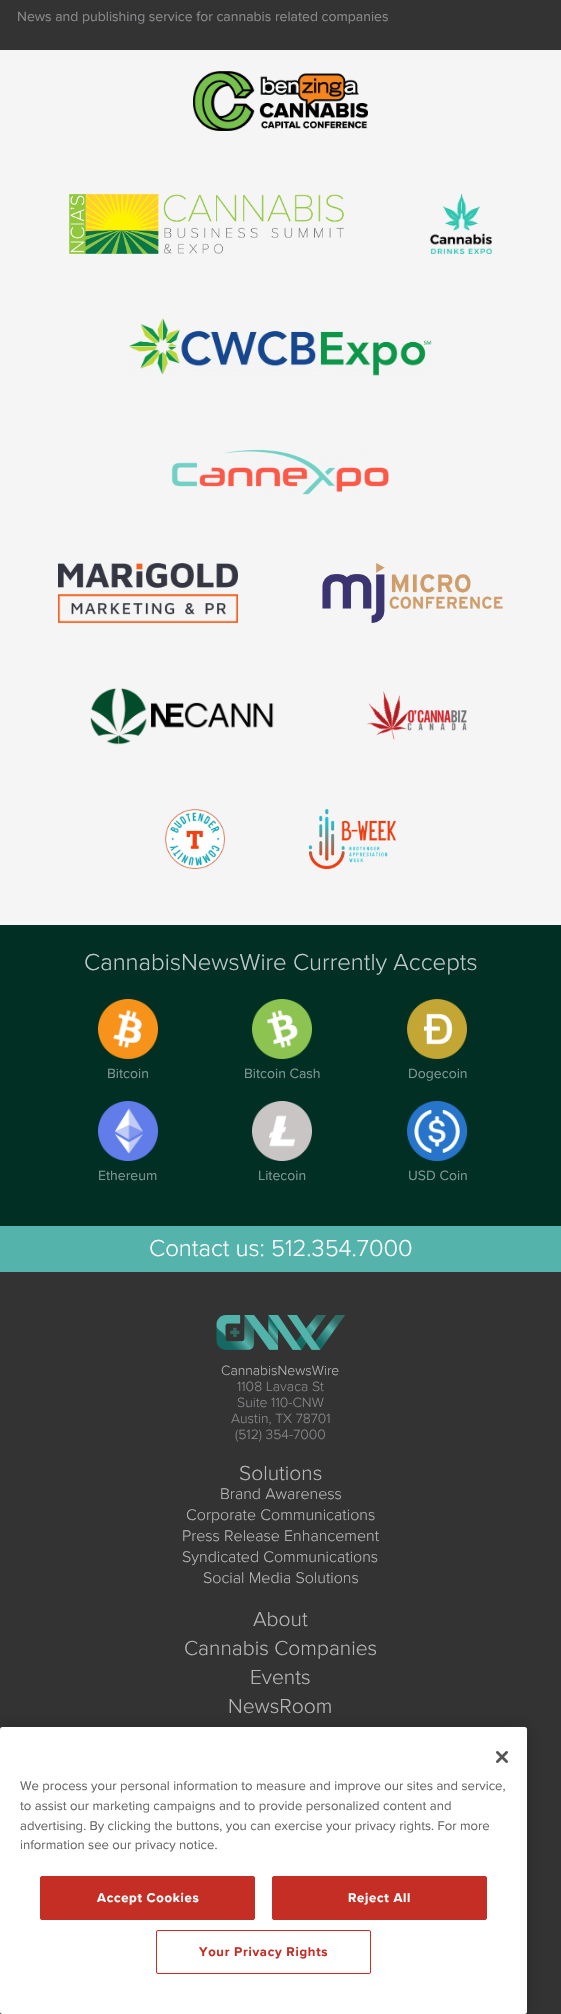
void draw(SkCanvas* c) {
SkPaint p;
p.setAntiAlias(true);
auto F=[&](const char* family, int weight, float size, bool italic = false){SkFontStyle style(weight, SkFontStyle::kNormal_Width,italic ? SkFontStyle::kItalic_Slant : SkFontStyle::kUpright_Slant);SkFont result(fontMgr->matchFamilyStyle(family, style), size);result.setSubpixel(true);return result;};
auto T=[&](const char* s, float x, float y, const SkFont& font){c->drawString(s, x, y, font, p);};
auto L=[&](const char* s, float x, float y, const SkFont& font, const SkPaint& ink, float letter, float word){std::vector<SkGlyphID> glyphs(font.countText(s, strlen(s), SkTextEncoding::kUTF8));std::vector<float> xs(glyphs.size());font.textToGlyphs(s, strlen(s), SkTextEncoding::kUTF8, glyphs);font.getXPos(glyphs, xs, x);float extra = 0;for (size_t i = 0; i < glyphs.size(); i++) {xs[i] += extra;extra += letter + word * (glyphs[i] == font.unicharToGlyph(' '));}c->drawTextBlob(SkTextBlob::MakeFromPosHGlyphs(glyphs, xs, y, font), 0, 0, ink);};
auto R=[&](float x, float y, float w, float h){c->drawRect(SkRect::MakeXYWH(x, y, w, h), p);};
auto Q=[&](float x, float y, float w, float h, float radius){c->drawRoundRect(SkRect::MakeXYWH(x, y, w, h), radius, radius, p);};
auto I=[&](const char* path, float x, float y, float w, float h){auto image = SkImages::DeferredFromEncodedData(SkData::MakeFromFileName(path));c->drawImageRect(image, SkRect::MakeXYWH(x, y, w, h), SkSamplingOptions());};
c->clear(0xfff5f5f5);
p.setColor(0xff333333);
R(0,0,561,50);
auto f1 = F("Proxima Nova",400,14);
p.setColor(0xff8a8a8d);
T("News and publishing service for cannabis related companies",17,21,f1);
I("1.png",193,71,175,60);
I("2.png",69,194,275,60);
I("3.png",430,194,62,60);
I("4.png",128,318,304,58);
I("5.png",171,449,218,46);
I("6.png",58,563,180,60);
I("7.png",322,563,181,60);
I("8.png",90,688,184,57);
I("9.png",367,691,100,49);
I("10.png",165,809,60,60);
I("11.png",309,809,87,60);
p.setColor(0xff012f23);
R(0,925,561,301);
auto f2 = F("Proxima Nova",300,24);
p.setColor(0xffc0cbc8);
T("CannabisNewsWire Currently Accepts",84,970,f2);
I("12.png",98,999,60,60);
p.setColor(0xff809791);
T("Bitcoin",107,1078,f1);
I("13.png",252,999,60,60);
T("Bitcoin Cash",244,1078,f1);
I("14.png",407,999,60,60);
T("Dogecoin",408,1078,f1);
I("15.png",98,1101,60,60);
T("Ethereum",98,1180,f1);
I("16.png",252,1101,60,60);
T("Litecoin",258,1180,f1);
I("17.png",407,1101,60,60);
T("USD Coin",408,1180,f1);
p.setColor(0xff54b4ac);
R(0,1226,561,46);
p.setColor(0xffffffff);
T("Contact us: 512.354.7000",149,1256,f2);
p.setColor(0xff333333);
R(0,1272,561,742);
I("18.png",216,1315,129,35);
auto f3 = F("Proxima Nova",300,14);
p.setColor(0xffb7b7b7);
T("CannabisNewsWire",221,1375,f3);
p.setColor(0xff8a8a8d);
T("1108 Lavaca St",237,1391,f3);
T("Suite 110-CNW",237,1407,f3);
T("Austin, TX 78701",231,1423,f3);
T("(512) 354-7000",235,1439,f3);
auto f4 = F("Proxima Nova",300,21);
p.setColor(0xffb7b7b7);
T("Solutions",239,1480,f4);
auto f5 = F("Proxima Nova",300,16);
T("Brand Awareness",220,1499,f5);
T("Corporate Communications",186,1520,f5);
T("Press Release Enhancement",182,1541,f5);
T("Syndicated Communications",182,1562,f5);
T("Social Media Solutions",203,1583,f5);
T("About",253,1626,f4);
T("Cannabis Companies",184,1655,f4);
T("Events",250,1684,f4);
T("NewsRoom",228,1713,f4);
p.setColor(0x33000000);
p.setMaskFilter(SkMaskFilter::MakeBlur(kNormal_SkBlurStyle, 9));
c->drawRoundRect(SkRect::MakeXYWH(0,1727,527,287),2.5,2.5,p);
p.setMaskFilter(nullptr);
p.setColor(0xffffffff);
Q(0,1727,527,287,2.5);
I("19.png",496,1751,12,12);
auto f6 = F("Proxima Nova",400,13.1);
p.setColor(0xff696969);
T("We process your personal information to measure and improve our sites and service,",20,1790,f6);
T("to assist our marketing campaigns and to provide personalized content and",20,1810,f6);
T("advertising. By clicking the buttons, you can exercise your privacy rights. For more",20,1830,f6);
T("information see our privacy notice.",20,1849,f6);
p.setColor(0xffc42e24);
c->drawRoundRect(SkRect::MakeXYWH(40.5,1876.5,214,43),1.5,1.5,p);
p.setStroke(true);
p.setStrokeWidth(1);
c->drawRoundRect(SkRect::MakeXYWH(40.5,1876.5,214,43),1.5,1.5,p);
auto f7 = F("Proxima Nova",700,13.1);
p.setStroke(false);
p.setColor(0xffffffff);
L("Accept Cookies",97,1902,f7,p,.7,0);
p.setColor(0xffc42e24);
c->drawRoundRect(SkRect::MakeXYWH(272.5,1876.5,214,43),1.5,1.5,p);
p.setStroke(true);
c->drawRoundRect(SkRect::MakeXYWH(272.5,1876.5,214,43),1.5,1.5,p);
p.setStroke(false);
p.setColor(0xffffffff);
L("Reject All",348,1902,f7,p,.7,0);
p.setStroke(true);
p.setColor(0xffc42e24);
c->drawRoundRect(SkRect::MakeXYWH(156.5,1930.5,214,43),1.5,1.5,p);
p.setStroke(false);
L("Your Privacy Rights",199,1956,f7,p,.7,0);
}
